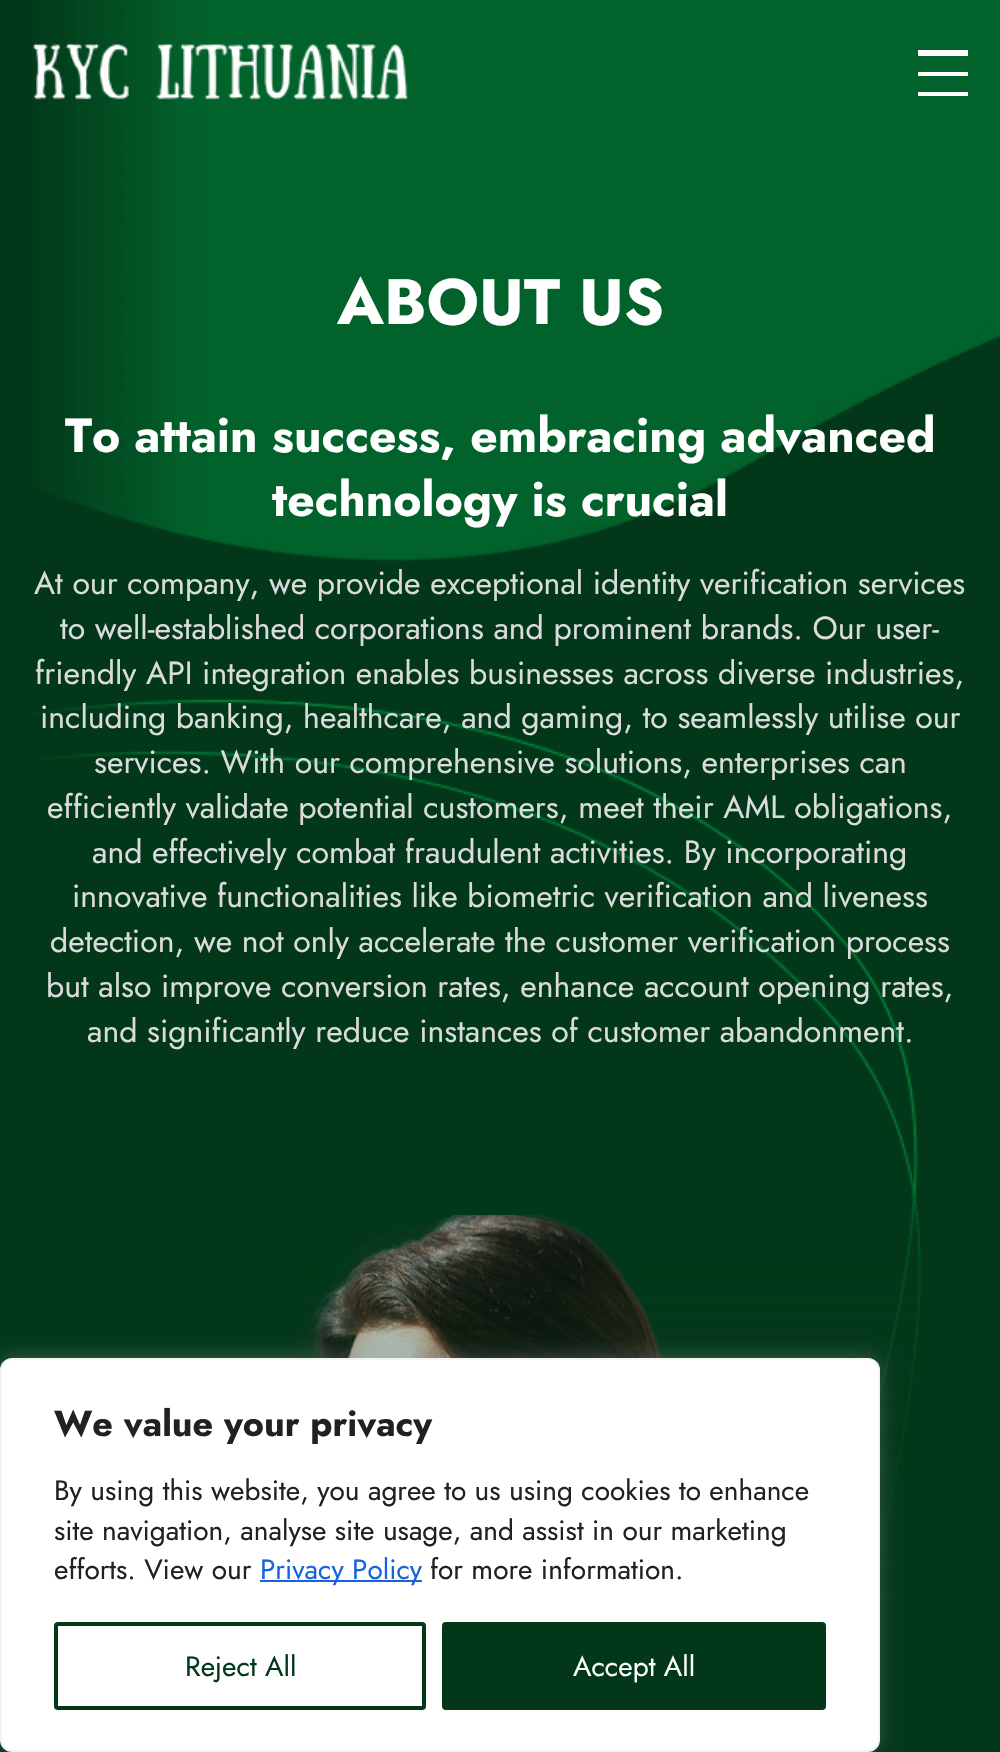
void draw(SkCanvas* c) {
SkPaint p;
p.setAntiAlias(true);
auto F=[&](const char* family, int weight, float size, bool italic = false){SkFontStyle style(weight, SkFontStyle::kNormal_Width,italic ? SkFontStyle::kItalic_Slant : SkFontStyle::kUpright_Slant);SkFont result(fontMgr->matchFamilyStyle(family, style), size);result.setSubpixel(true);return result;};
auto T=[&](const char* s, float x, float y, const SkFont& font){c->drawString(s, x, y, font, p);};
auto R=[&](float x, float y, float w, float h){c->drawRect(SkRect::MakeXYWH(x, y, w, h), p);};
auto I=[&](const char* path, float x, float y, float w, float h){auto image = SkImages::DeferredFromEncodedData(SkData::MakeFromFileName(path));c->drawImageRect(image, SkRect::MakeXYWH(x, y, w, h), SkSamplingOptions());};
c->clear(0xff023719);
I("1.png",32,0,968,1623);
I("2.png",32,43,377,57);
p.setColor(0xffffffff);
R(918,72,50,4);
R(918,50,50,6);
R(918,92,50,4);
auto f1 = F("Jost",700,64);
T("ABOUT US",337,324,f1);
auto f2 = F("Jost",700,48);
T("To attain success, embracing advanced",65,452,f2);
T("technology is crucial",272,516,f2);
auto f3 = F("Jost",400,32);
p.setColor(0xffdbdbdb);
T("At our company, we provide exceptional identity verification services",34,594,f3);
T("to well-established corporations and prominent brands. Our user-",60,639,f3);
T("friendly API integration enables businesses across diverse industries,",35,684,f3);
T("including banking, healthcare, and gaming, to seamlessly utilise our",40,728,f3);
T("services. With our comprehensive solutions, enterprises can",94,773,f3);
T("efficiently validate potential customers, meet their AML obligations,",47,818,f3);
T("and effectively combat fraudulent activities. By incorporating",92,863,f3);
T("innovative functionalities like biometric verification and liveness",72,907,f3);
T("detection, we not only accelerate the customer verification process",50,952,f3);
T("but also improve conversion rates, enhance account opening rates,",46,997,f3);
T("and significantly reduce instances of customer abandonment.",87,1042,f3);
I("3.png",296,1215,367,143);
{
const SkColor colors[] = {0x00023719,0x99023719,0xf2023719,0xff023719,0xff023719};
const float stops[] = {0,.54,.85,.99,1};
const SkPoint ends[] = {{500,1054}, {500,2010}};
p.setShader(SkGradientShader::MakeLinear(ends, colors, stops, 5, SkTileMode::kClamp));
p.setAlpha(255);
}
R(304,1089,617,534);
p.setShader(nullptr);
p.setColor(0x4dacabab);
p.setMaskFilter(SkMaskFilter::MakeBlur(kNormal_SkBlurStyle, 10));
c->drawRoundRect(SkRect::MakeXYWH(0,1356,880,394),12,12,p);
p.setMaskFilter(nullptr);
p.setColor(0xffffffff);
c->drawRoundRect(SkRect::MakeXYWH(1,1359,878,392),11,11,p);
p.setStroke(true);
p.setStrokeWidth(2);
p.setColor(0xfff4f4f4);
c->drawRoundRect(SkRect::MakeXYWH(1,1359,878,392),11,11,p);
auto f4 = F("Jost",700,36);
p.setStroke(false);
p.setColor(0xff212121);
T("We value your privacy",54,1436,f4);
auto f5 = F("Jost",400,28);
T("By using this website, you agree to us using cookies to enhance",54,1500,f5);
T("site navigation, analyse site usage, and assist in our marketing",54,1540,f5);
T("efforts. View our",54,1579,f5);
p.setColor(0xff1863dc);
R(260,1580,162,2);
T("Privacy Policy",260,1579,f5);
p.setColor(0xff212121);
T("for more information.",430,1579,f5);
p.setStroke(true);
p.setStrokeWidth(4);
p.setColor(0xff023719);
c->drawRoundRect(SkRect::MakeXYWH(56,1624,368,84),2,2,p);
p.setStroke(false);
T("Reject All",185,1676,f5);
c->drawRoundRect(SkRect::MakeXYWH(444,1624,380,84),2,2,p);
p.setStroke(true);
c->drawRoundRect(SkRect::MakeXYWH(444,1624,380,84),2,2,p);
p.setStroke(false);
p.setColor(0xffffffff);
T("Accept All",573,1676,f5);
}
